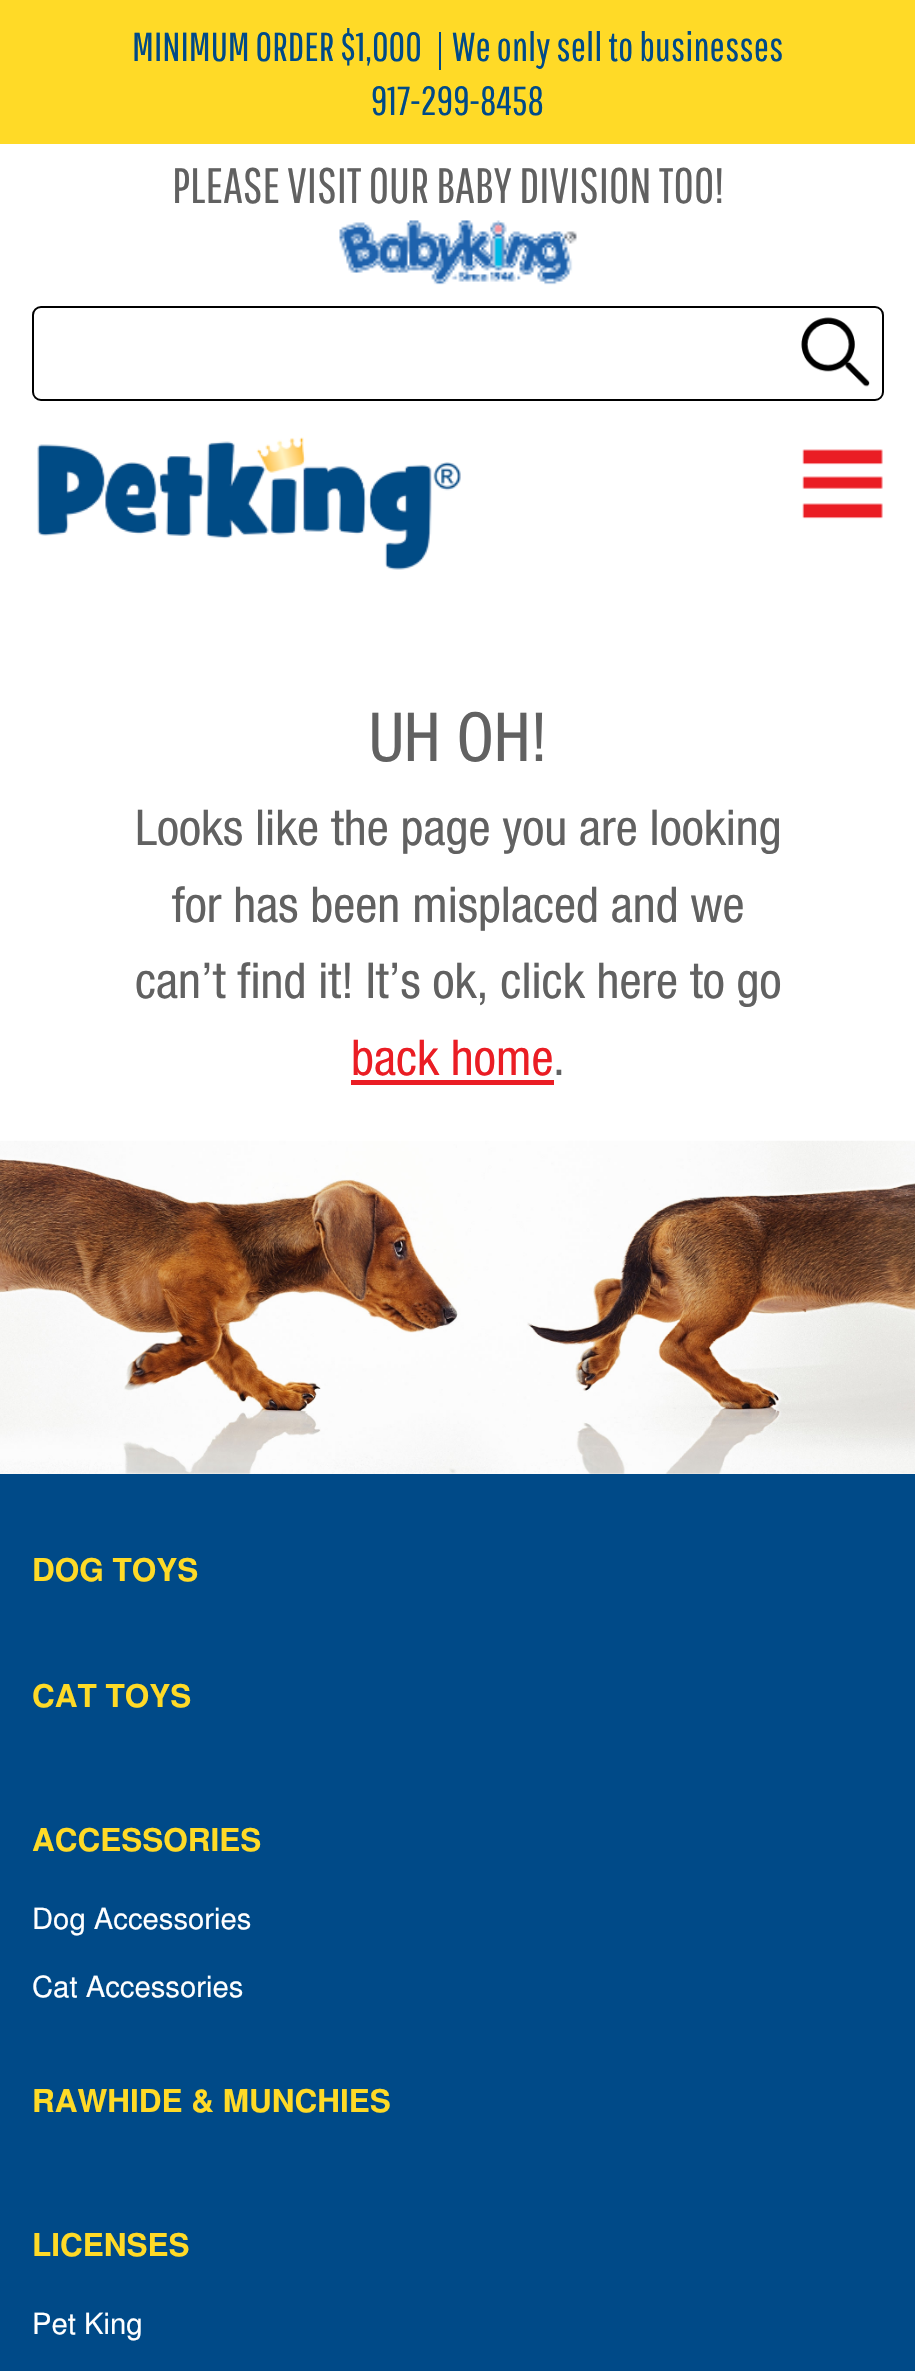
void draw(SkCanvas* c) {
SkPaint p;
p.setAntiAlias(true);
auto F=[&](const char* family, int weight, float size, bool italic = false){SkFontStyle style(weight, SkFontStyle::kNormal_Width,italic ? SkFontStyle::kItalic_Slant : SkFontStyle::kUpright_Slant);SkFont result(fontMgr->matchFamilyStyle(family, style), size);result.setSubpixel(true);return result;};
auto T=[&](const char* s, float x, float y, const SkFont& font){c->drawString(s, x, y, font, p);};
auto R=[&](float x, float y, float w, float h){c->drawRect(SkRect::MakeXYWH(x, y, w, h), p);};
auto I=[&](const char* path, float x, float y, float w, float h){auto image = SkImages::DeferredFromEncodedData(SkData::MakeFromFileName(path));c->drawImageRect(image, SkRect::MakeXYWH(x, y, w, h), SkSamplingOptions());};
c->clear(0xffffffff);
p.setColor(0xffffda27);
R(0,0,915,144);
auto f1 = F("Pathway Gothic One",400,40.5);
p.setColor(0xff004a88);
T("MINIMUM ORDER $1,000",132,61,f1);
R(439,32,2,38);
T("We only sell to businesses",452,61,f1);
T("917-299-8458",371,115,f1);
auto f2 = F("Pathway Gothic One",400,49.5);
p.setColor(0xff616161);
T("PLEASE VISIT OUR BABY DIVISION TOO!",172,203,f2);
I("1.png",339,220,238,65);
p.setStroke(true);
p.setStrokeWidth(2);
p.setColor(0xff000000);
c->drawRoundRect(SkRect::MakeXYWH(33,307,850,93),8,8,p);
I("2.png",801,317,69,70);
I("3.png",37,437,424,133);
I("4.png",802,449,81,70);
auto f3 = F("Helvetica Neue",500,67.5);
p.setStroke(false);
p.setColor(0xff616161);
T("UH OH!",369,761,f3);
auto f4 = F("Helvetica Neue",500,49.5);
T("Looks like the page you are looking",135,845,f4);
T("for has been misplaced and we",172,922,f4);
T("can’t find it! It’s ok, click here to go",135,998,f4);
p.setColor(0xffea1d24);
T("back home",351,1075,f4);
R(351,1080,203,5);
p.setColor(0xff616161);
T(".",553,1075,f4);
I("5.png",0,1140,915,334);
p.setColor(0xff004a88);
R(0,1474,915,897);
auto f5 = F("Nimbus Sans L",700,31.5);
p.setColor(0xffffda27);
T("DOG TOYS",32,1581,f5);
T("CAT TOYS",32,1707,f5);
T("ACCESSORIES",32,1851,f5);
auto f6 = F("Nimbus Sans L",400,29.25);
p.setColor(0xffffffff);
T("Dog Accessories",32,1929,f6);
T("Cat Accessories",32,1997,f6);
p.setColor(0xffffda27);
T("RAWHIDE & MUNCHIES",32,2112,f5);
T("LICENSES",32,2256,f5);
p.setColor(0xffffffff);
T("Pet King",32,2334,f6);
}
